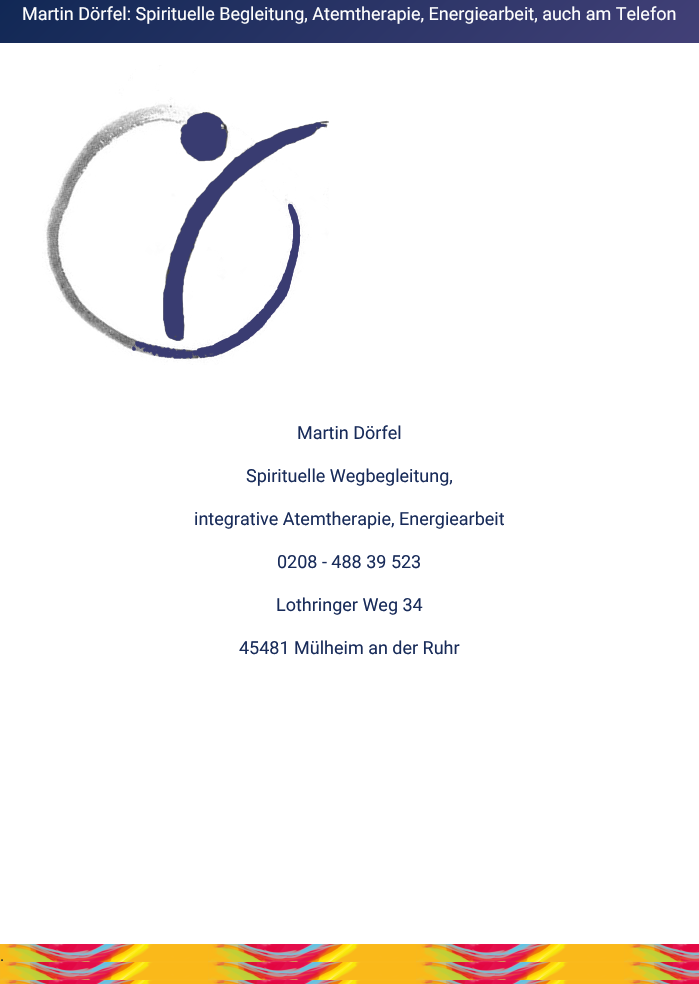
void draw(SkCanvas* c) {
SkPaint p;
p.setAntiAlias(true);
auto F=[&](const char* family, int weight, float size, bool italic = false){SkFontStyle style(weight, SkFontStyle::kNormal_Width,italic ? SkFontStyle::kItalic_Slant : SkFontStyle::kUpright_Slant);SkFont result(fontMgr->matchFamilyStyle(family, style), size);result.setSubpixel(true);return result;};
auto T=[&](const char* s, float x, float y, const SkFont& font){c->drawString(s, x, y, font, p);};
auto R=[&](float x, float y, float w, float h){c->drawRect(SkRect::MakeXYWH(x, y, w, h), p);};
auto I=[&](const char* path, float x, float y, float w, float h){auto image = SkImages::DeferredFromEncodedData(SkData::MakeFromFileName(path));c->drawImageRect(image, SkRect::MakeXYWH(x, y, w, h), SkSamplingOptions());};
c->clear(0xffffffff);
{
const SkColor colors[] = {0xff112855,0xff424077};
const float stops[] = {0,1};
const SkPoint ends[] = {{164,-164}, {535,207}};
p.setShader(SkGradientShader::MakeLinear(ends, colors, stops, 2, SkTileMode::kClamp));
p.setAlpha(255);
}
R(0,0,699,43);
auto f1 = F("Roboto",400,18);
p.setShader(nullptr);
p.setColor(0xffffffff);
T("Martin Dörfel: Spirituelle Begleitung, Atemtherapie, Energiearbeit, auch am Telefon",22,20,f1);
I("1.png",42,65,287,300);
p.setColor(0xff192c5a);
T("Martin Dörfel",297,439,f1);
T("Spirituelle Wegbegleitung,",246,482,f1);
T("integrative Atemtherapie, Energiearbeit",194,525,f1);
T("0208 - 488 39 523",277,568,f1);
T("Lothringer Weg 34",276,611,f1);
T("45481 Mülheim an der Ruhr",239,654,f1);
I("2.png",0,944,699,40);
auto f2 = F("Roboto",400,16);
p.setColor(0xff22262a);
T(".",0,961,f2);
}
